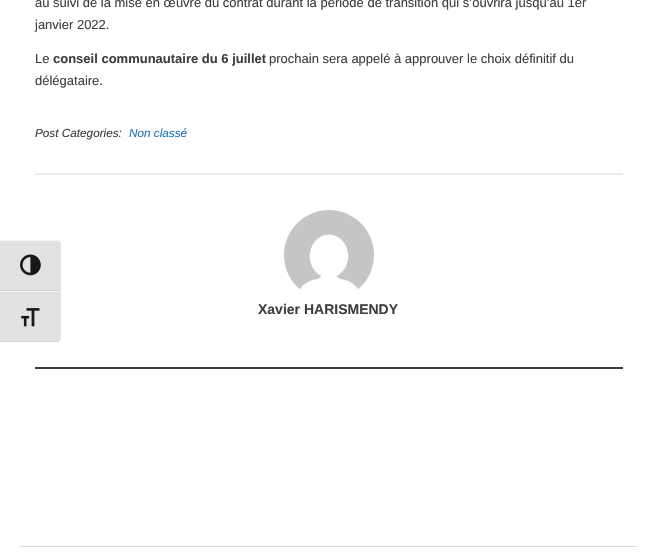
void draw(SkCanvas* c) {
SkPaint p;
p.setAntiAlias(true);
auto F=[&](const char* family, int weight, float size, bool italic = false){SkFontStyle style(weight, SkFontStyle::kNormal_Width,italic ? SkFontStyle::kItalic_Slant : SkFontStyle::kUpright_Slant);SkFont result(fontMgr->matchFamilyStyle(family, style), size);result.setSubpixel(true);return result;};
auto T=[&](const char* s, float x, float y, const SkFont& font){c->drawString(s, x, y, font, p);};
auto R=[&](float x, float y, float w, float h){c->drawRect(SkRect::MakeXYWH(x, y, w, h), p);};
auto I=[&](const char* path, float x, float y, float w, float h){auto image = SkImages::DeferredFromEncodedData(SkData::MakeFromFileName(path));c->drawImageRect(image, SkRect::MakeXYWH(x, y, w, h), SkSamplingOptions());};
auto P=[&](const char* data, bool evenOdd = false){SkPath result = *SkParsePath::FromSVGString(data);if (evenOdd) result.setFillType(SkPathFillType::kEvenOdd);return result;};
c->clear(0xffffffff);
p.setColor(0xffe2e2e2);
c->drawPath(P("M0 240h57c2 0 4 2 4 4v47h-61z"),p);
p.setColor(0xfff5f5f5);
c->drawPath(P("M0 240v1h57c2 0 4 1 4 3c0-2-2-4-4-4z"),p);
p.setColor(0xffd2d2d2);
R(0,290,61,1);
I("1.png",20,254,21,22);
p.setColor(0xffe2e2e2);
c->drawPath(P("M0 291h61v47c0 2-2 4-4 4h-57z"),p);
p.setColor(0xfff5f5f5);
R(0,291,61,1);
p.setColor(0xffd2d2d2);
c->drawPath(P("M0 341v1h57c2 0 4-2 4-4c0 2-2 3-4 3z"),p);
I("2.png",21,308,19,19);
auto f1 = F("Liberation Sans",400,13);
p.setColor(0xff3f3f3f);
T("au suivi de la mise en œuvre du contrat durant la période de transition qui s’ouvrira jusqu’au 1er",35,7,f1);
T("janvier 2022.",35,29,f1);
T("Le",35,63,f1);
auto f2 = F("Liberation Sans",700,13);
T("conseil communautaire du 6 juillet",53,63,f2);
T("prochain sera appelé à approuver le choix définitif du",269,63,f1);
T("délégataire.",35,85,f1);
auto f3 = F("Liberation Sans",400,11.75,true);
T("Post Categories:",35,137,f3);
p.setColor(0xff1e73be);
T("Non classé",129,137,f3);
p.setColor(0xffececec);
R(35,173,588,2);
p.setColor(0xff3b3b3b);
R(35,367,588,2);
I("3.png",284,210,90,80);
auto f4 = F("Liberation Sans",700,14);
p.setColor(0xff3f3f3f);
T("Xavier HARISMENDY",258,314,f4);
p.setColor(0xffd8d8d8);
R(20,546,617,1);
}
